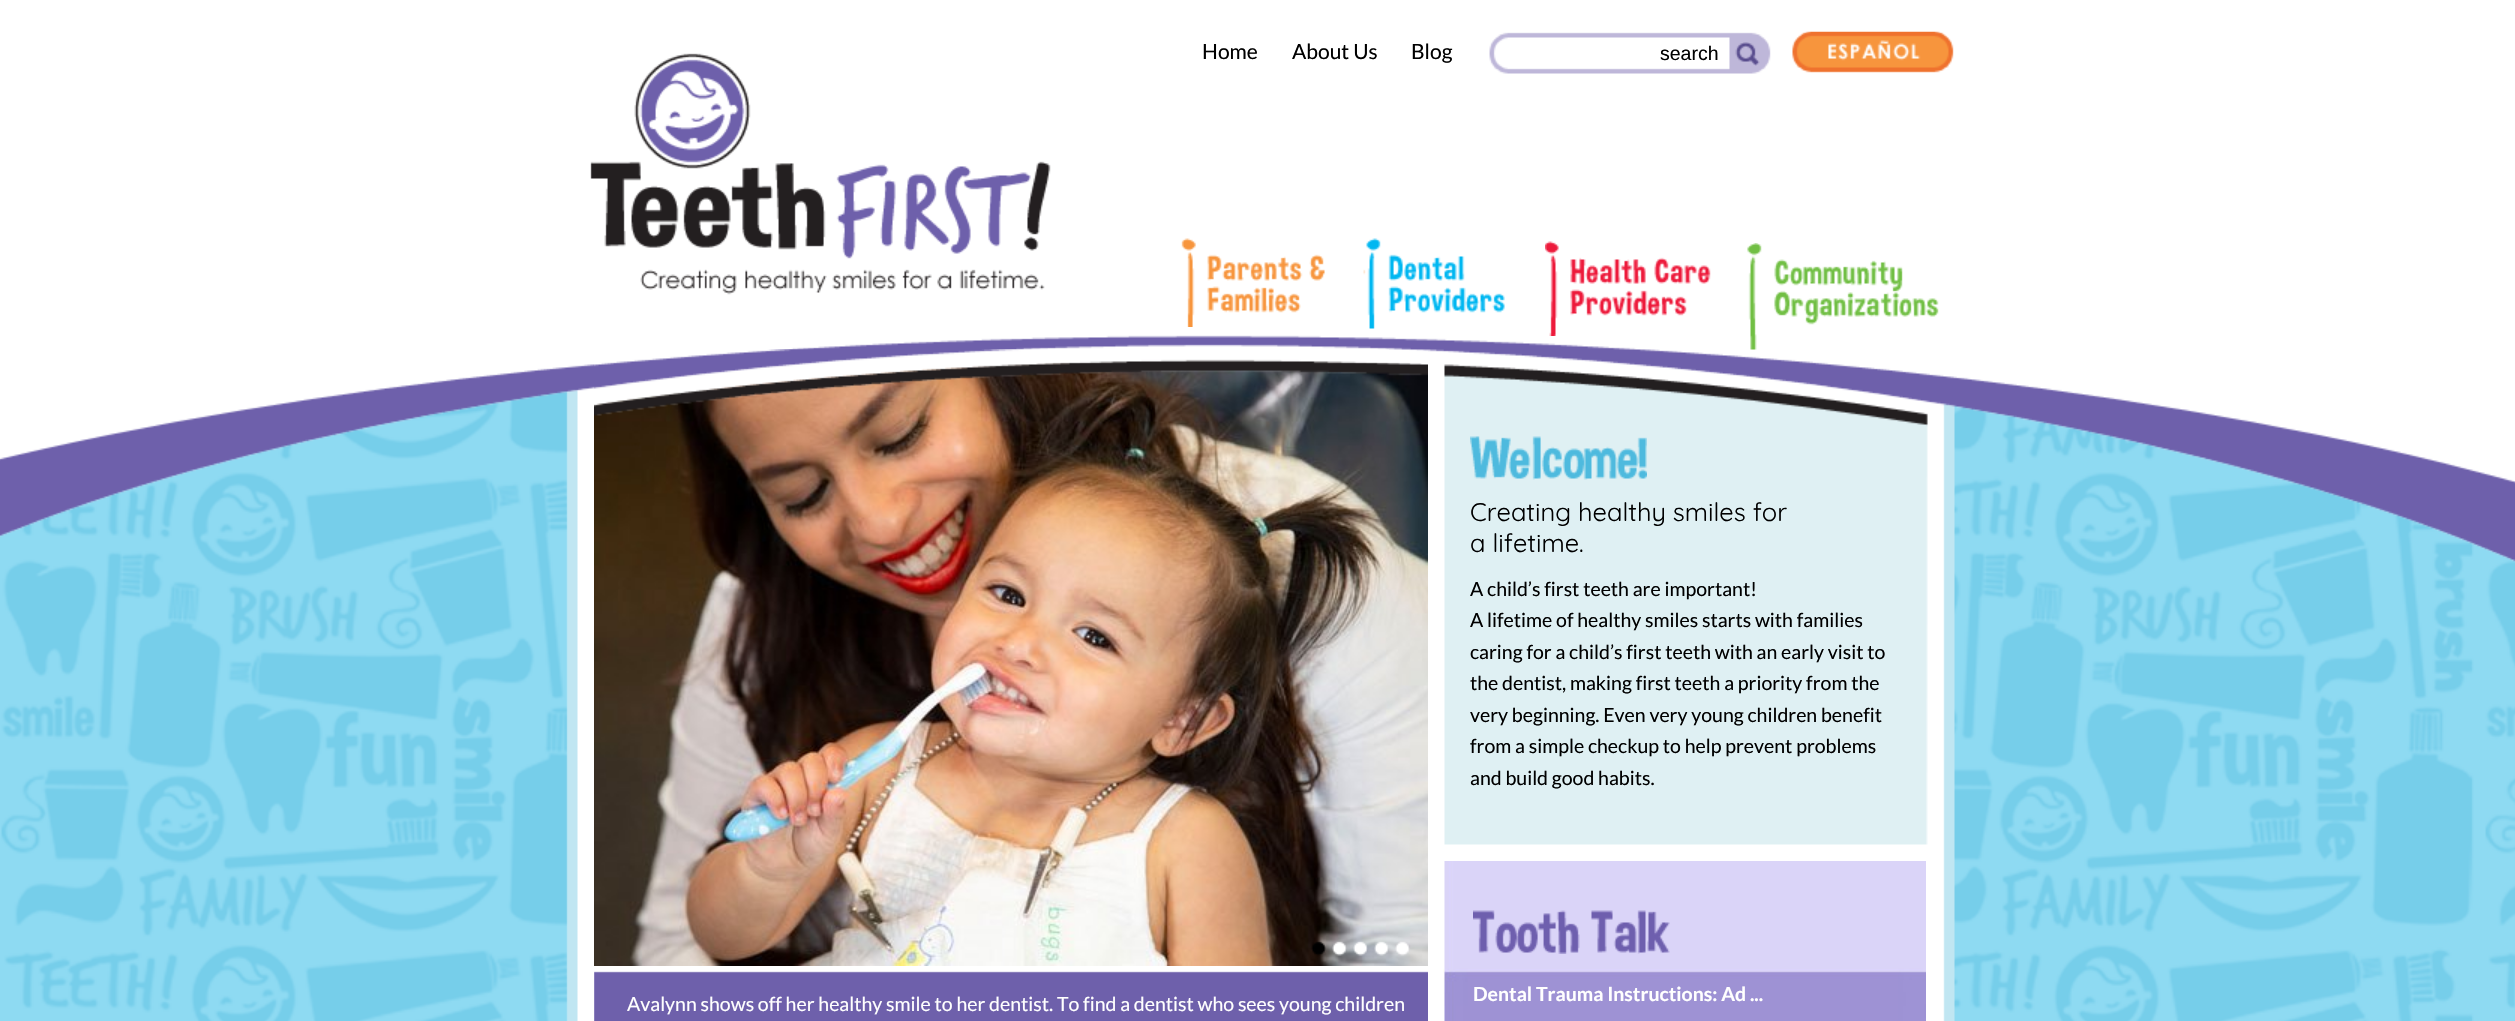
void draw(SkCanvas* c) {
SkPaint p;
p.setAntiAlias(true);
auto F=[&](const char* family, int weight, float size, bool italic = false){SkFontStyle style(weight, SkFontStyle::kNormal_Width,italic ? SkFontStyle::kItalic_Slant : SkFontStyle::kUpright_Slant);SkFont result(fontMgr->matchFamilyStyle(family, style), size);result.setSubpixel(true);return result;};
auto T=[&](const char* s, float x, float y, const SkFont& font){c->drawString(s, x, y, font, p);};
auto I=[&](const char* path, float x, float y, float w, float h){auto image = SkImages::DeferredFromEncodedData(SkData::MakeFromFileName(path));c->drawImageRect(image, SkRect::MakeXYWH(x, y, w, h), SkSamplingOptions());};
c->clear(0xffffffff);
I("1.png",0,389,2515,632);
I("11.png",566,344,1389,677);
I("12.png",1444,364,484,481);
I("13.png",1470,436,177,44);
I("2.png",0,0,2515,562);
I("3.png",590,53,461,242);
auto f1 = F("Lato",400,21);
p.setColor(0xff000000);
T("Home",1202,59,f1);
T("About Us",1292,59,f1);
T("Blog",1411,59,f1);
I("4.png",1489,32,282,42);
auto f2 = F("Liberation Sans",400,19.5);
T("search",1660,60,f2);
I("5.png",1735,42,25,24);
I("6.png",1792,31,162,42);
I("7.png",1181,238,144,89);
I("8.png",1363,238,142,91);
I("9.png",1545,241,166,95);
I("10.png",1747,243,192,107);
auto f3 = F("Quicksand",400,25.5);
T("Creating healthy smiles for",1470,521,f3);
T("a lifetime.",1470,552,f3);
auto f4 = F("Lato",400,19.5);
T("A child’s first teeth are important!",1470,596,f4);
T("A lifetime of healthy smiles starts with families",1470,627,f4);
T("caring for a child’s first teeth with an early visit to",1470,659,f4);
T("the dentist, making first teeth a priority from the",1470,690,f4);
T("very beginning. Even very young children benefit",1470,722,f4);
T("from a simple checkup to help prevent problems",1470,753,f4);
T("and build good habits.",1470,785,f4);
I("14.png",1443,861,483,160);
I("15.png",1473,910,197,44);
auto f5 = F("Lato",700,19.5);
p.setColor(0xffffffff);
T("Dental Trauma Instructions: Ad ...",1473,1001,f5);
I("22.png",594,363,834,603);
I("16.png",594,349,834,67);
I("17.png",1311,941,15,15);
I("18.png",1332,941,15,15);
I("19.png",1353,941,15,15);
I("20.png",1374,941,15,15);
I("21.png",1395,941,15,15);
I("23.png",594,971,834,50);
T("Avalynn shows off her healthy smile to her dentist. To find a dentist who sees young children",627,1011,f4);
}
